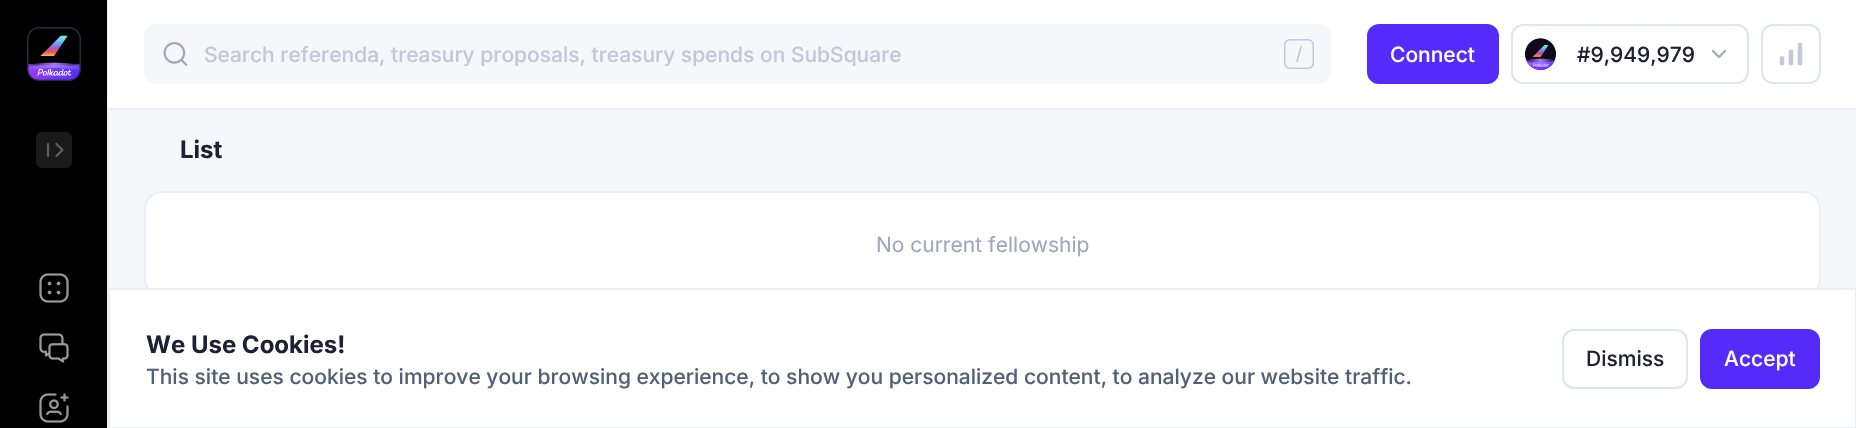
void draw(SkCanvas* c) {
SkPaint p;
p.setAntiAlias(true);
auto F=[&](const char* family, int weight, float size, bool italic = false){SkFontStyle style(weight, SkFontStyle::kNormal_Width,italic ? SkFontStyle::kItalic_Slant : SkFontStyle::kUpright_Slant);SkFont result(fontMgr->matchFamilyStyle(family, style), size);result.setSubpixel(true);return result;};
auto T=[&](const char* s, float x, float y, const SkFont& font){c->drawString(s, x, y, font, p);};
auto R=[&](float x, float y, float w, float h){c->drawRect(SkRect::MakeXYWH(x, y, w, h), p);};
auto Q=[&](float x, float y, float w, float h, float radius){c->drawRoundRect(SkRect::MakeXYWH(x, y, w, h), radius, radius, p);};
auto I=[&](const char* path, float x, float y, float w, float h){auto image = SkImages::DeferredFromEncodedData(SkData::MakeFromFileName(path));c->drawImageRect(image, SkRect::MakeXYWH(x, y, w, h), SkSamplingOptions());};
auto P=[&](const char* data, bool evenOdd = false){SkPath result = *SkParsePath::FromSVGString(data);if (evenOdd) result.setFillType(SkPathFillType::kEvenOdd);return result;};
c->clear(0xfff6f7fa);
p.setColor(0xff000000);
R(0,0,107,428);
p.setColor(0xffffffff);
c->drawRoundRect(SkRect::MakeXYWH(145,192,1675,104),17,17,p);
p.setStroke(true);
p.setStrokeWidth(2);
p.setColor(0xffebeef4);
c->drawRoundRect(SkRect::MakeXYWH(145,192,1675,104),17,17,p);
p.setStroke(false);
p.setColor(0xffffffff);
c->drawRect(SkRect::MakeXYWH(109,289,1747,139),p);
p.setStroke(true);
p.setColor(0xffebeef4);
c->drawRect(SkRect::MakeXYWH(109,289,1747,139),p);
p.setStroke(false);
R(107,0,2,428);
I("1.png",27,27,54,54);
p.setColor(0xff1a1a1a);
Q(36,132,36,36,6);
p.setStroke(true);
p.setStrokeWidth(2.2);
p.setStrokeCap(SkPaint::kRound_Cap);
p.setStrokeJoin(SkPaint::kRound_Join);
p.setColor(0xff5f5f5f);
c->drawPath(P("M56.5 156l6-6l-6-6m-8.5 12v-12"),p);
I("2.png",39,273,30,30);
I("3.png",39,333,30,30);
I("4.png",39,393,30,30);
p.setStroke(false);
p.setColor(0xffffffff);
R(108,0,1748,108);
p.setColor(0xffebeef4);
R(108,108,1748,2);
p.setColor(0xfff6f7fa);
Q(144,24,1187,60,12);
I("5.png",163,42,25,24);
c->save();
c->clipRect(SkRect::MakeXYWH(204,41,1067,25));
auto f1 = F("Inter",500,21);
p.setColor(0xffc2c8d4);
T("Search referenda, treasury proposals, treasury spends on SubSquare",204,62,f1);
c->restore();
I("6.png",1284,39,30,30);
p.setColor(0xff542bfb);
Q(1367,24,132,60,12);
p.setColor(0xffffffff);
T("Connect",1390,62,f1);
p.setStroke(true);
p.setStrokeWidth(2);
p.setStrokeCap(SkPaint::kButt_Cap);
p.setStrokeJoin(SkPaint::kMiter_Join);
p.setColor(0xffe0e4eb);
c->drawRoundRect(SkRect::MakeXYWH(1512,25,236,58),11,11,p);
I("7.png",1525,38,31,32);
p.setStroke(false);
p.setColor(0xff1e2134);
T("#9,949,979",1577,62,f1);
p.setStroke(true);
p.setStrokeWidth(2.2);
p.setStrokeCap(SkPaint::kRound_Cap);
p.setStrokeJoin(SkPaint::kRound_Join);
p.setColor(0xff9da9bb);
c->drawPath(P("M1713 51l6 6l6-6"),p);
p.setStrokeWidth(2);
p.setStrokeCap(SkPaint::kButt_Cap);
p.setStrokeJoin(SkPaint::kMiter_Join);
p.setColor(0xffe0e4eb);
c->drawRoundRect(SkRect::MakeXYWH(1762,25,58,58),11,11,p);
I("8.png",1779,42,24,24);
auto f2 = F("Inter",700,24);
p.setStroke(false);
p.setColor(0xff1e2134);
T("List",180,158,f2);
auto f3 = F("Inter",400,21);
p.setColor(0xff9da9bb);
T("No current fellowship",876,252,f3);
p.setColor(0xff1e2134);
T("We Use Cookies!",146,353,f2);
p.setColor(0xff506176);
T("This site uses cookies to improve your browsing experience, to show you personalized content, to analyze our website traffic.",146,384,f1);
p.setStroke(true);
p.setColor(0xffe0e4eb);
c->drawRoundRect(SkRect::MakeXYWH(1563,330,124,58),11,11,p);
p.setStroke(false);
p.setColor(0xff1e2134);
T("Dismiss",1586,366,f1);
p.setColor(0xff542bfb);
Q(1700,329,120,60,12);
p.setColor(0xffffffff);
T("Accept",1724,366,f1);
}
